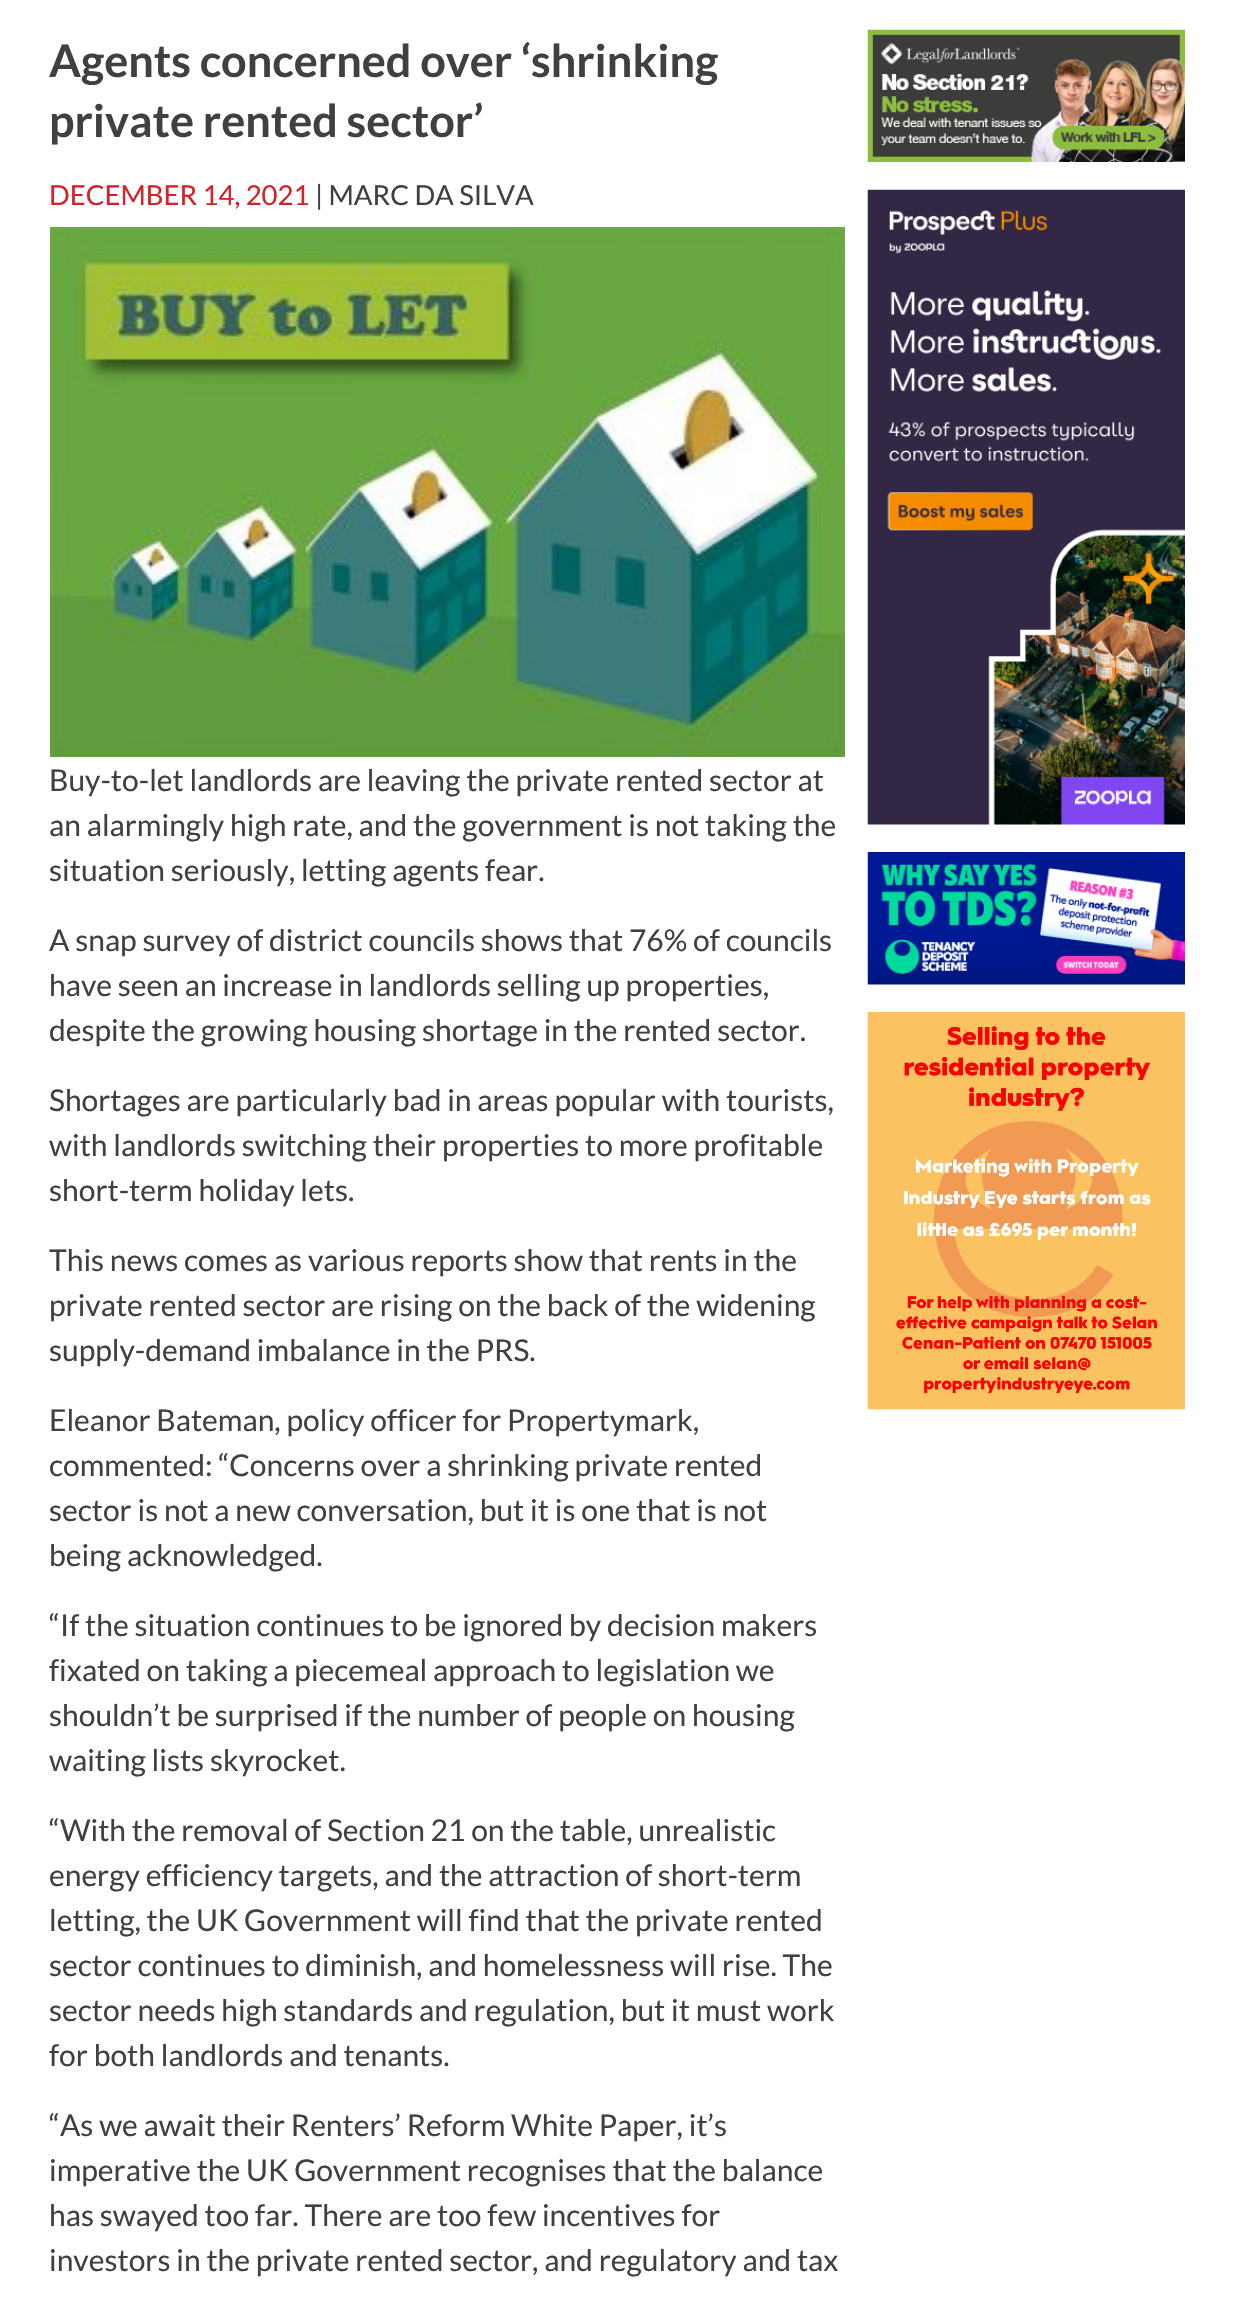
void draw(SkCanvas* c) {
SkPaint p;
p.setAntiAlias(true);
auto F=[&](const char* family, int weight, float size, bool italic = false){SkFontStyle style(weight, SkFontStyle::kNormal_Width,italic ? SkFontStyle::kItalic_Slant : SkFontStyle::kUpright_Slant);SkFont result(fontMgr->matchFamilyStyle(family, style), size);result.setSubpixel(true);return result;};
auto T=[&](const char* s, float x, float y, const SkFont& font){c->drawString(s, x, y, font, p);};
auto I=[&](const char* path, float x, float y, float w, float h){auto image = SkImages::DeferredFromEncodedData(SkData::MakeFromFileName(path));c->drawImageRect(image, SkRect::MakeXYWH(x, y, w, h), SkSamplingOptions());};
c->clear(0xffffffff);
auto f1 = F("Lato",700,45);
p.setColor(0xff404040);
T("Agents concerned over ‘shrinking",49,77,f1);
T("private rented sector’",49,137,f1);
auto f2 = F("Lato",400,27.5);
p.setColor(0xffd32229);
T("DECEMBER 14, 2021",49,205,f2);
p.setColor(0xff404040);
T("| MARC DA SILVA",315,205,f2);
I("1.png",50,227,795,530);
auto f3 = F("Lato",400,30);
T("Buy-to-let landlords are leaving the private rented sector at",49,791,f3);
T("an alarmingly high rate, and the government is not taking the",49,836,f3);
T("situation seriously, letting agents fear.",49,881,f3);
T("A snap survey of district councils shows that 76% of councils",49,951,f3);
T("have seen an increase in landlords selling up properties,",49,996,f3);
T("despite the growing housing shortage in the rented sector.",49,1041,f3);
T("Shortages are particularly bad in areas popular with tourists,",49,1111,f3);
T("with landlords switching their properties to more profitable",49,1156,f3);
T("short-term holiday lets.",49,1201,f3);
T("This news comes as various reports show that rents in the",49,1271,f3);
T("private rented sector are rising on the back of the widening",49,1316,f3);
T("supply-demand imbalance in the PRS.",49,1361,f3);
T("Eleanor Bateman, policy officer for Propertymark,",49,1431,f3);
T("commented: “Concerns over a shrinking private rented",49,1476,f3);
T("sector is not a new conversation, but it is one that is not",49,1521,f3);
T("being acknowledged.",49,1566,f3);
T("“If the situation continues to be ignored by decision makers",49,1636,f3);
T("fixated on taking a piecemeal approach to legislation we",49,1681,f3);
T("shouldn’t be surprised if the number of people on housing",49,1726,f3);
T("waiting lists skyrocket.",49,1771,f3);
T("“With the removal of Section 21 on the table, unrealistic",49,1841,f3);
T("energy efficiency targets, and the attraction of short-term",49,1886,f3);
T("letting, the UK Government will find that the private rented",49,1931,f3);
T("sector continues to diminish, and homelessness will rise. The",49,1976,f3);
T("sector needs high standards and regulation, but it must work",49,2021,f3);
T("for both landlords and tenants.",49,2066,f3);
T("“As we await their Renters’ Reform White Paper, it’s",49,2136,f3);
T("imperative the UK Government recognises that the balance",49,2181,f3);
T("has swayed too far. There are too few incentives for",49,2226,f3);
T("investors in the private rented sector, and regulatory and tax",49,2271,f3);
I("2.png",867,29,318,133);
I("3.png",867,189,318,636);
I("4.png",867,852,318,133);
I("5.png",867,1012,318,398);
}
